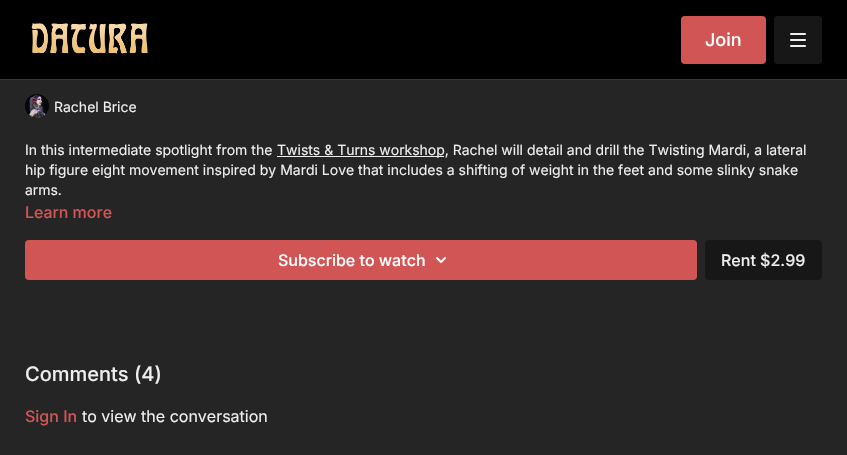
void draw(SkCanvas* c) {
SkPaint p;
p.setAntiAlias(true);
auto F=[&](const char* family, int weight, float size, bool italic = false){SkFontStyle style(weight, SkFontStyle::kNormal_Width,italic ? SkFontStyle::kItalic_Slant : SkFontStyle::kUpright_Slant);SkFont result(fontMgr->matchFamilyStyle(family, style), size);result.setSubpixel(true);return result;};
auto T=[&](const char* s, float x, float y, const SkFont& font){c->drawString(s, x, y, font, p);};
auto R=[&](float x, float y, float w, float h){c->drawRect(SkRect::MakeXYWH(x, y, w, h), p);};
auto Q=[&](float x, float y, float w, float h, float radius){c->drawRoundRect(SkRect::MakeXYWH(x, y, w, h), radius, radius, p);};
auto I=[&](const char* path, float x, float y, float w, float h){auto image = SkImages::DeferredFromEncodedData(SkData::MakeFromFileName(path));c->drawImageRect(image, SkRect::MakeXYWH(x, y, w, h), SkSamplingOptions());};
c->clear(0xff252525);
p.setColor(0xff000000);
R(0,0,847,79);
p.setColor(0xff373737);
R(0,79,847,1);
I("1.png",31,23,117,31);
p.setColor(0xffd15555);
Q(681,16,85,48,4);
auto f1 = F("Inter",500,18);
p.setColor(0xffffffff);
T("Join",705,46,f1);
p.setColor(0xff171717);
Q(774,16,48,48,4);
I("2.png",790,33,16,14);
I("3.png",25,94,24,24);
auto f2 = F("Inter",400,14);
p.setColor(0xffeeeeee);
T("Rachel Brice",54,112,f2);
T("In this intermediate spotlight from the",25,155,f2);
R(277,156,167,1);
T("Twists & Turns workshop, Rachel will detail and drill the Twisting Mardi, a lateral",277,155,f2);
T("hip figure eight movement inspired by Mardi Love that includes a shifting of weight in the feet and some slinky snake",25,175,f2);
T("arms.",25,195,f2);
auto f3 = F("Inter",500,16);
p.setColor(0xffd15555);
T("Learn more",25,218,f3);
Q(25,240,672,40,4);
p.setColor(0xffffffff);
T("Subscribe to watch",278,266,f3);
I("4.png",436,257,10,6);
p.setColor(0xff171717);
Q(705,240,117,40,4);
p.setColor(0xffeeeeee);
T("Rent $2.99",721,266,f3);
auto f4 = F("Inter",500,20);
T("Comments (4)",25,381,f4);
p.setColor(0xffd15555);
T("Sign In",25,422,f3);
auto f5 = F("Inter",400,16);
p.setColor(0xffeeeeee);
T("to view the conversation",82,422,f5);
}
